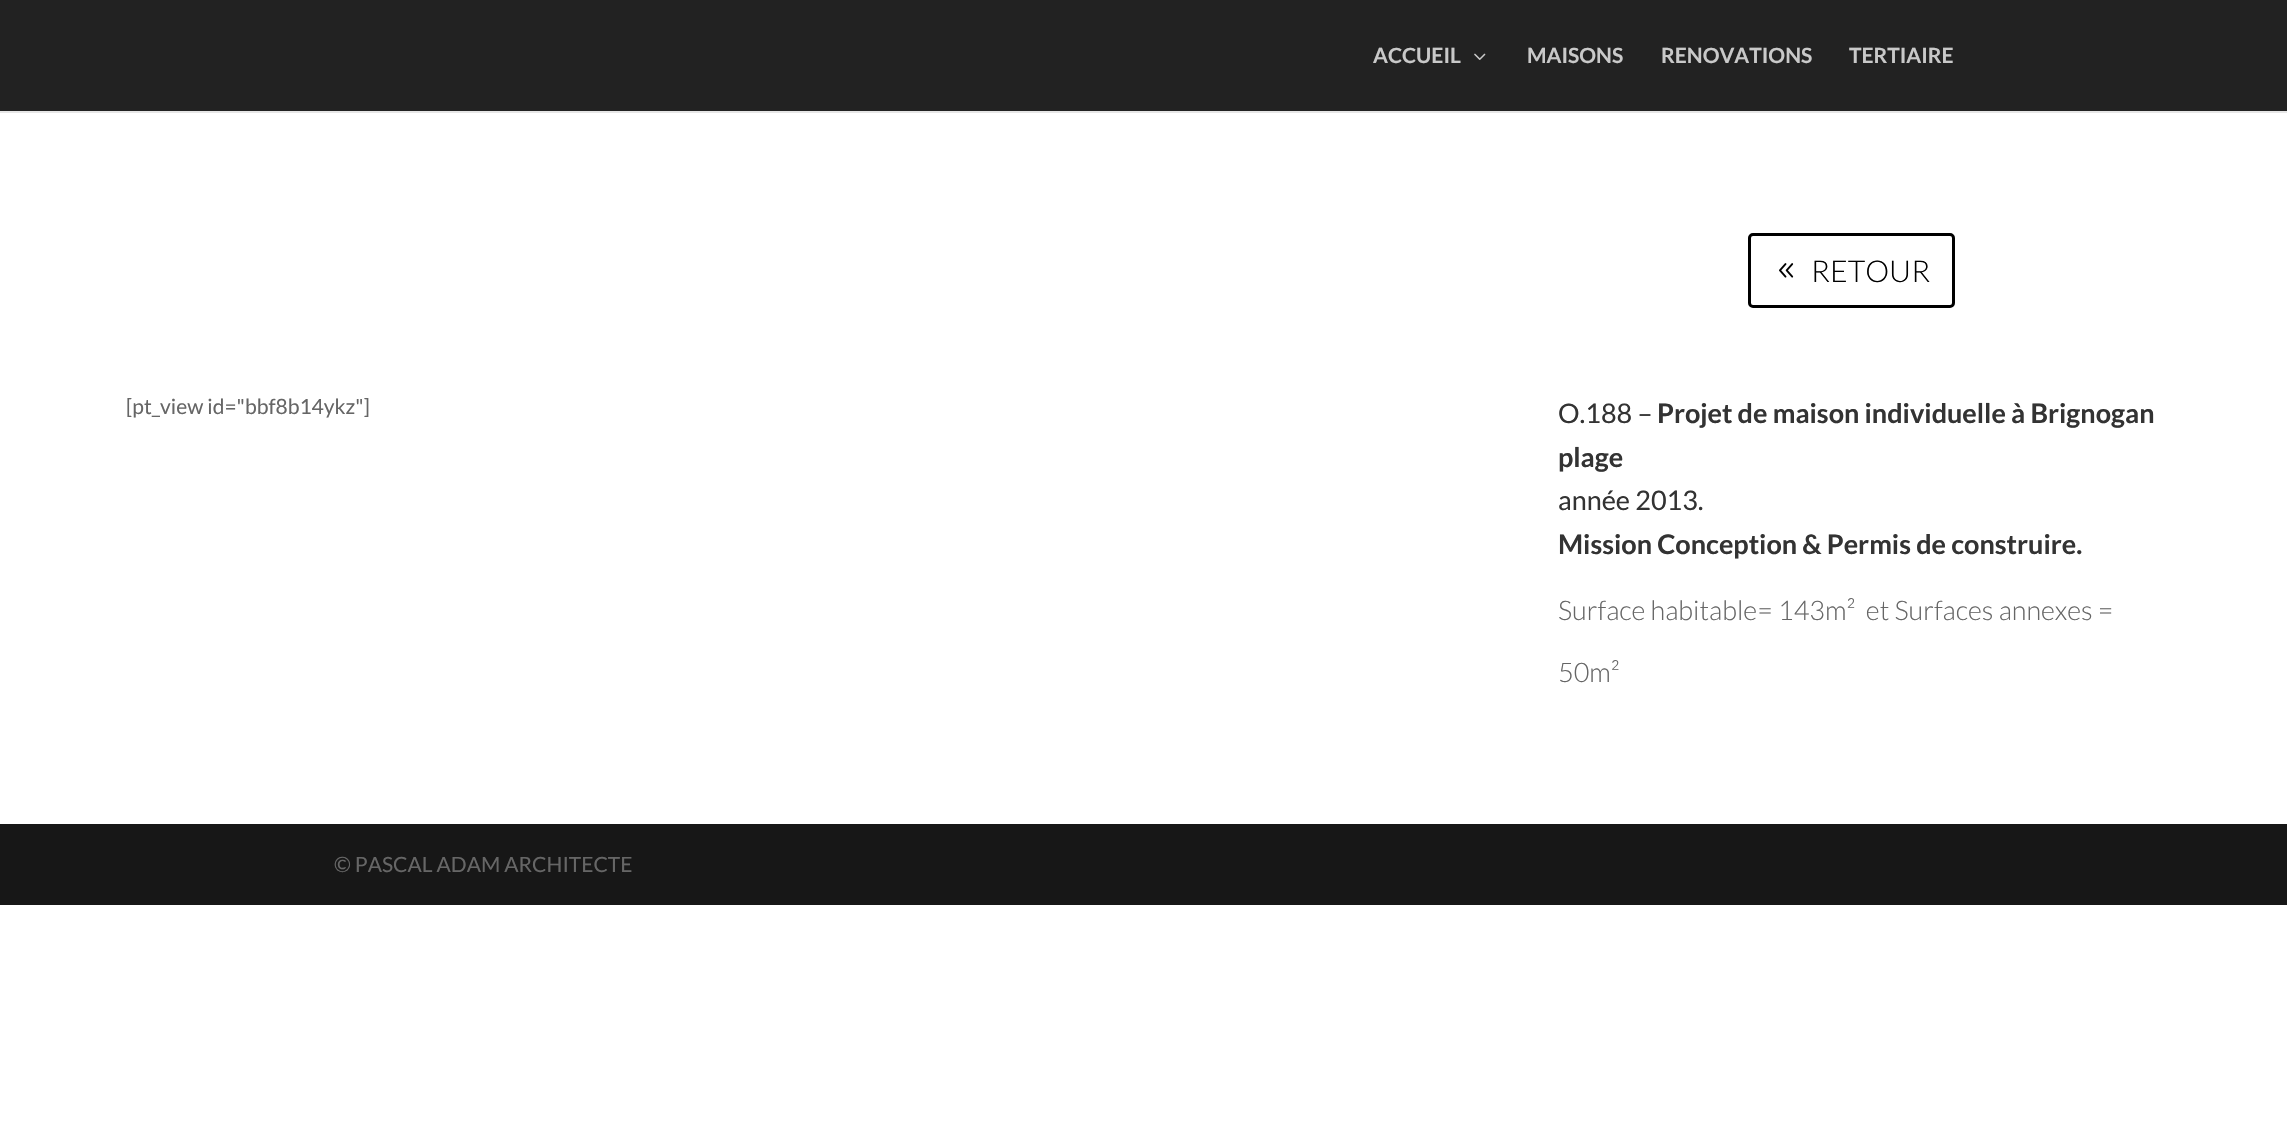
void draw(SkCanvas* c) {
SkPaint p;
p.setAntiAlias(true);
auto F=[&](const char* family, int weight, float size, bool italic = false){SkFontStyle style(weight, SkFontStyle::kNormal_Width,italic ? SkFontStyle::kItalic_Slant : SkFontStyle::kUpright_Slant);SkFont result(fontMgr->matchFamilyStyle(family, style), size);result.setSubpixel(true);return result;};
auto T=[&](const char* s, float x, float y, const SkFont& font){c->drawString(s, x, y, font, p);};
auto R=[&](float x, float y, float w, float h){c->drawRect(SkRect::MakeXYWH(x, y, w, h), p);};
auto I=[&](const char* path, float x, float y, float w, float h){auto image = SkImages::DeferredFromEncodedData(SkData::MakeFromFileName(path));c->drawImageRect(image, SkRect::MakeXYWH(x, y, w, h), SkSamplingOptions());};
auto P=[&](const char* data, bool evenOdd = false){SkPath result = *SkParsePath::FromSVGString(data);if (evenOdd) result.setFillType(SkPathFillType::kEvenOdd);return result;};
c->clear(0xffffffff);
p.setColor(0xffe6e6e6);
c->drawPath(P("M0 111v2h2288v-111v109z"),p);
p.setColor(0xff222222);
R(0,0,2287,111);
auto f1 = F("Lato",700,21);
p.setColor(0xffc9c9c9);
T("ACCUEIL",1373,63,f1);
I("1.png",1474,53,12,7);
T("MAISONS",1527,63,f1);
T("RENOVATIONS",1661,63,f1);
T("TERTIAIRE",1849,63,f1);
p.setStroke(true);
p.setStrokeWidth(3);
p.setColor(0xff000000);
c->drawRoundRect(SkRect::MakeXYWH(1749.5,234.5,204,72),3.5,3.5,p);
I("2.png",1779,263,15,15);
auto f2 = F("Lato",300,30);
p.setStroke(false);
T("RETOUR",1811,282,f2);
auto f3 = F("Lato",400,21);
p.setColor(0xff666666);
T("[pt_view id=\"bbf8b14ykz\"]",126,414,f3);
auto f4 = F("Lato",400,27);
p.setColor(0xff333333);
T("O.188 –",1558,423,f4);
auto f5 = F("Lato",700,27);
T("Projet de maison individuelle à Brignogan",1657,423,f5);
T("plage",1558,467,f5);
T("année 2013.",1558,510,f4);
T("Mission Conception & Permis de construire.",1558,554,f5);
auto f6 = F("Lato",300,27);
p.setColor(0xff666666);
T("Surface habitable= 143m²  et Surfaces annexes =",1558,620,f6);
T("50m²",1558,682,f6);
p.setColor(0xff171717);
R(0,824,2287,81);
p.setColor(0xff666666);
T("© PASCAL ADAM ARCHITECTE",334,872,f3);
}
